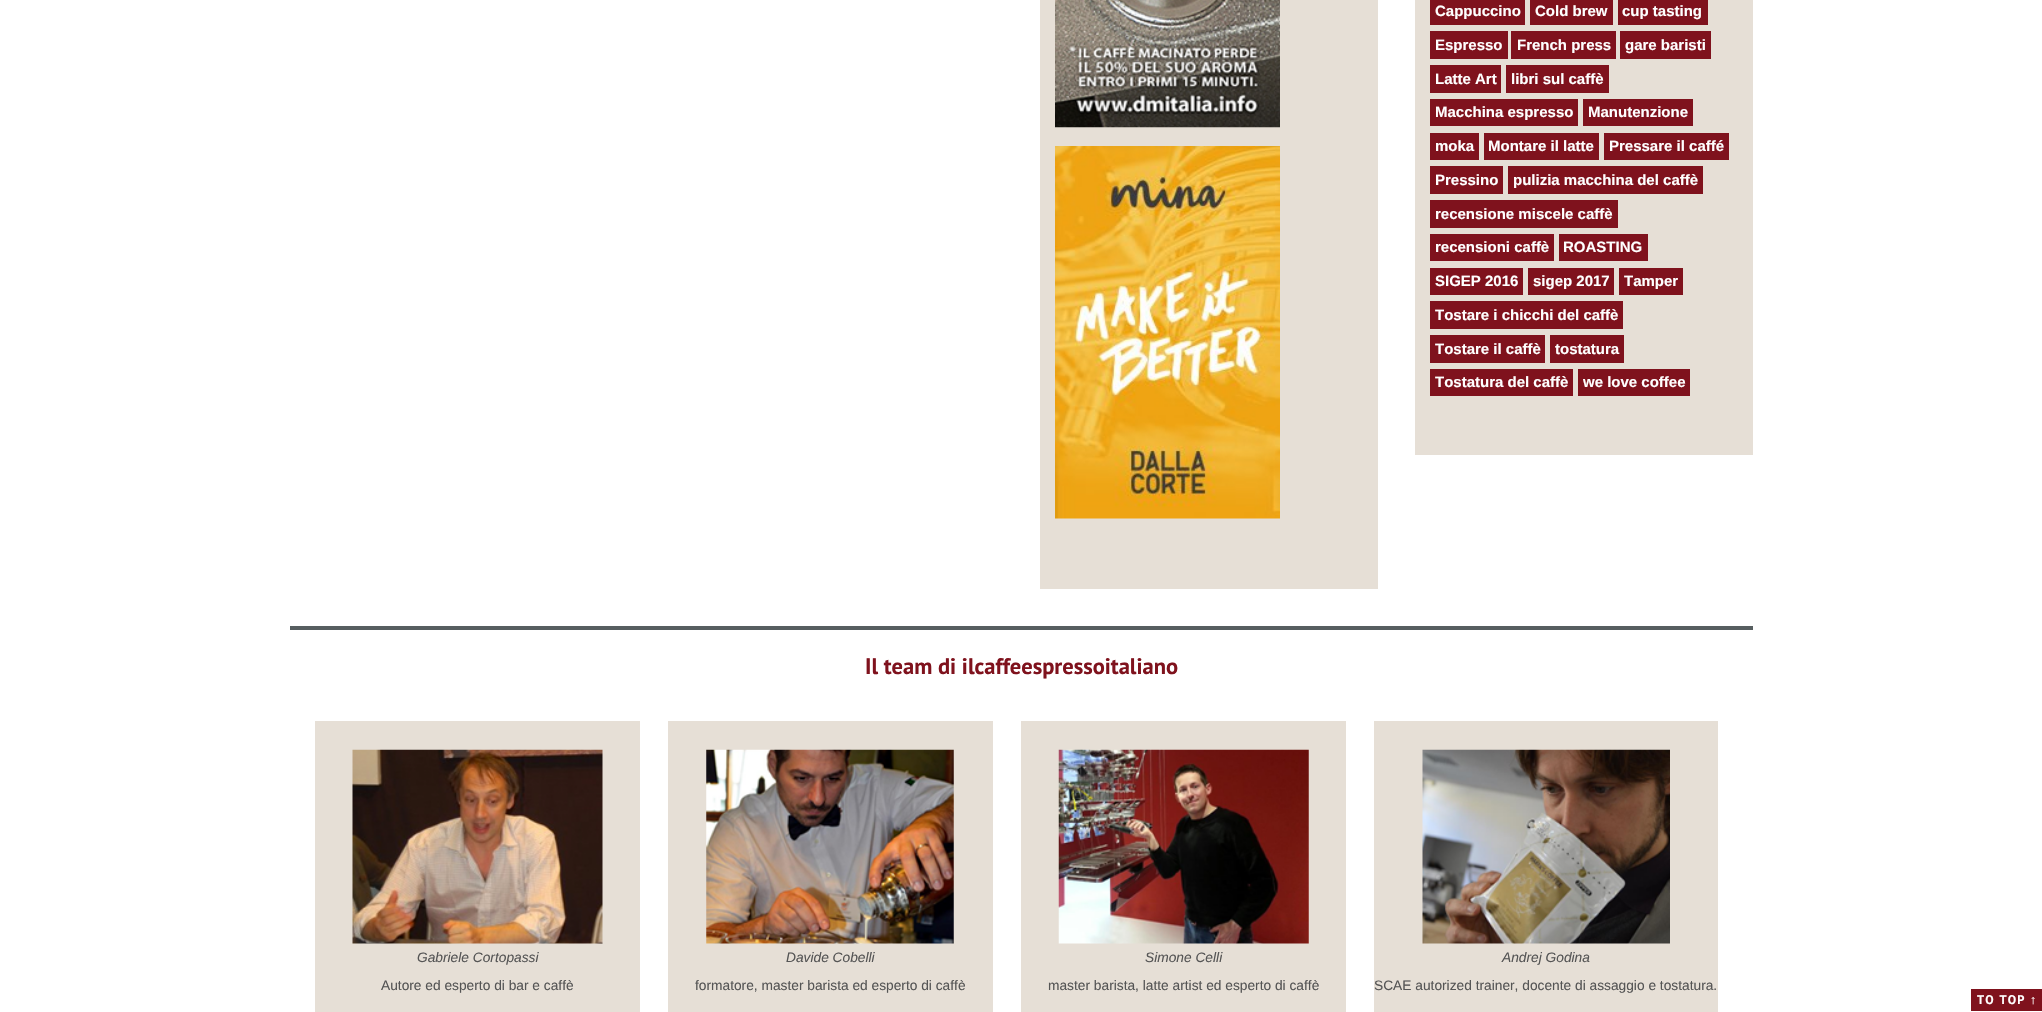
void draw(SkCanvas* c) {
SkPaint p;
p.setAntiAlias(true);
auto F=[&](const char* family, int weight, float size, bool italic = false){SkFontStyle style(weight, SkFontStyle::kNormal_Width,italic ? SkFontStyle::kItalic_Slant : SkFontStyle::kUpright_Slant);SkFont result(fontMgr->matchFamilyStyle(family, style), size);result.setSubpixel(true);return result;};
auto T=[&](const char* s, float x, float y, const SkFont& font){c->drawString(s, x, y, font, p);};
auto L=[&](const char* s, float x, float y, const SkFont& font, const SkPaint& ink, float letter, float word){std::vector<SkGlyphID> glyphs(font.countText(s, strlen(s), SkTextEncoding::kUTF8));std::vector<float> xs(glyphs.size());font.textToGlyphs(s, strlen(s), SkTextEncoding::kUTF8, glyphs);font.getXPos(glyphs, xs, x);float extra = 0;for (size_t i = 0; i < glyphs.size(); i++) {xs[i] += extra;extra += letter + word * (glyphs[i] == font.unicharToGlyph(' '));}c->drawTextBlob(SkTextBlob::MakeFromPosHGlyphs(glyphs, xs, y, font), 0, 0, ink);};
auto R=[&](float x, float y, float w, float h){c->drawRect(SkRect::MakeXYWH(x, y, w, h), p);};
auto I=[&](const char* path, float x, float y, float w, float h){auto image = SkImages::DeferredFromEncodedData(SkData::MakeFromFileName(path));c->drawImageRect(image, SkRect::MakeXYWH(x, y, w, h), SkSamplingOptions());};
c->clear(0xffffffff);
p.setColor(0xffe6dfd6);
R(1040,0,338,589);
I("1.png",1055,0,225,128);
I("2.png",1055,146,225,373);
R(1415,0,338,455);
p.setColor(0xff7f121d);
R(1430,0,95,25);
auto f1 = F("Liberation Sans",700,15);
p.setColor(0xffffffff);
T("Cappuccino",1435,16,f1);
p.setColor(0xff7f121d);
R(1530,0,83,25);
p.setColor(0xffffffff);
T("Cold brew",1535,16,f1);
p.setColor(0xff7f121d);
R(1618,0,90,25);
p.setColor(0xffffffff);
T("cup tasting",1622,16,f1);
p.setColor(0xff7f121d);
R(1430,31,78,28);
p.setColor(0xffffffff);
T("Espresso",1435,50,f1);
p.setColor(0xff7f121d);
R(1511,31,105,28);
p.setColor(0xffffffff);
T("French press",1517,50,f1);
p.setColor(0xff7f121d);
R(1620,31,91,28);
p.setColor(0xffffffff);
T("gare baristi",1625,50,f1);
p.setColor(0xff7f121d);
R(1430,65,71,28);
p.setColor(0xffffffff);
T("Latte Art",1435,84,f1);
p.setColor(0xff7f121d);
R(1506,65,103,28);
p.setColor(0xffffffff);
T("libri sul caffè",1511,84,f1);
p.setColor(0xff7f121d);
R(1430,99,148,27);
p.setColor(0xffffffff);
T("Macchina espresso",1435,117,f1);
p.setColor(0xff7f121d);
R(1583,99,110,27);
p.setColor(0xffffffff);
T("Manutenzione",1588,117,f1);
p.setColor(0xff7f121d);
R(1430,133,49,27);
p.setColor(0xffffffff);
T("moka",1435,151,f1);
p.setColor(0xff7f121d);
R(1484,133,115,27);
p.setColor(0xffffffff);
T("Montare il latte",1488,151,f1);
p.setColor(0xff7f121d);
R(1604,133,125,27);
p.setColor(0xffffffff);
T("Pressare il caffé",1609,151,f1);
p.setColor(0xff7f121d);
R(1430,166,73,28);
p.setColor(0xffffffff);
T("Pressino",1435,185,f1);
p.setColor(0xff7f121d);
R(1508,166,195,28);
p.setColor(0xffffffff);
T("pulizia macchina del caffè",1513,185,f1);
p.setColor(0xff7f121d);
R(1430,200,188,28);
p.setColor(0xffffffff);
T("recensione miscele caffè",1435,219,f1);
p.setColor(0xff7f121d);
R(1430,234,124,27);
p.setColor(0xffffffff);
T("recensioni caffè",1435,252,f1);
p.setColor(0xff7f121d);
R(1559,234,89,27);
p.setColor(0xffffffff);
T("ROASTING",1563,252,f1);
p.setColor(0xff7f121d);
R(1430,268,93,27);
p.setColor(0xffffffff);
T("SIGEP 2016",1435,286,f1);
p.setColor(0xff7f121d);
R(1528,268,86,27);
p.setColor(0xffffffff);
T("sigep 2017",1533,286,f1);
p.setColor(0xff7f121d);
R(1619,268,64,27);
p.setColor(0xffffffff);
T("Tamper",1624,286,f1);
p.setColor(0xff7f121d);
R(1430,301,193,28);
p.setColor(0xffffffff);
T("Tostare i chicchi del caffè",1435,320,f1);
p.setColor(0xff7f121d);
R(1430,335,115,28);
p.setColor(0xffffffff);
T("Tostare il caffè",1435,354,f1);
p.setColor(0xff7f121d);
R(1550,335,74,28);
p.setColor(0xffffffff);
T("tostatura",1555,354,f1);
p.setColor(0xff7f121d);
R(1430,369,143,27);
p.setColor(0xffffffff);
T("Tostatura del caffè",1435,387,f1);
p.setColor(0xff7f121d);
R(1578,369,112,27);
p.setColor(0xffffffff);
T("we love coffee",1583,387,f1);
p.setColor(0xff575e60);
R(290,626,1463,4);
auto f2 = F("PT Sans",700,22.5);
p.setColor(0xff7f121d);
T("Il team di ilcaffeespressoitaliano",865,674,f2);
p.setColor(0xffe6dfd6);
R(315,721,325,291);
I("3.png",352,749,251,195);
auto f3 = F("Liberation Sans",400,13.75,true);
p.setColor(0xff555555);
T("Gabriele Cortopassi",417,962,f3);
auto f4 = F("Liberation Sans",400,13.75);
T("Autore ed esperto di bar e caffè",381,990,f4);
p.setColor(0xffe6dfd6);
R(668,721,325,291);
I("4.png",706,749,248,195);
p.setColor(0xff555555);
T("Davide Cobelli",786,962,f3);
T("formatore, master barista ed esperto di caffè",695,990,f4);
p.setColor(0xffe6dfd6);
R(1021,721,325,291);
I("5.png",1058,749,251,195);
p.setColor(0xff555555);
T("Simone Celli",1145,962,f3);
T("master barista, latte artist ed esperto di caffè",1048,990,f4);
p.setColor(0xffe6dfd6);
R(1374,721,344,291);
I("6.png",1422,749,248,195);
p.setColor(0xff555555);
T("Andrej Godina",1502,962,f3);
T("SCAE autorized trainer, docente di assaggio e tostatura.",1374,990,f4);
p.setColor(0xff7f121d);
R(1971,989,71,22);
auto f5 = F("PT Sans",700,12.5);
p.setColor(0xffffffff);
L("TO TOP",1977,1004,f5,p,1.25,0);
auto f6 = F("Liberation Serif",700,12.5);
L("↑",2030,1004,f6,p,1.25,0);
}
